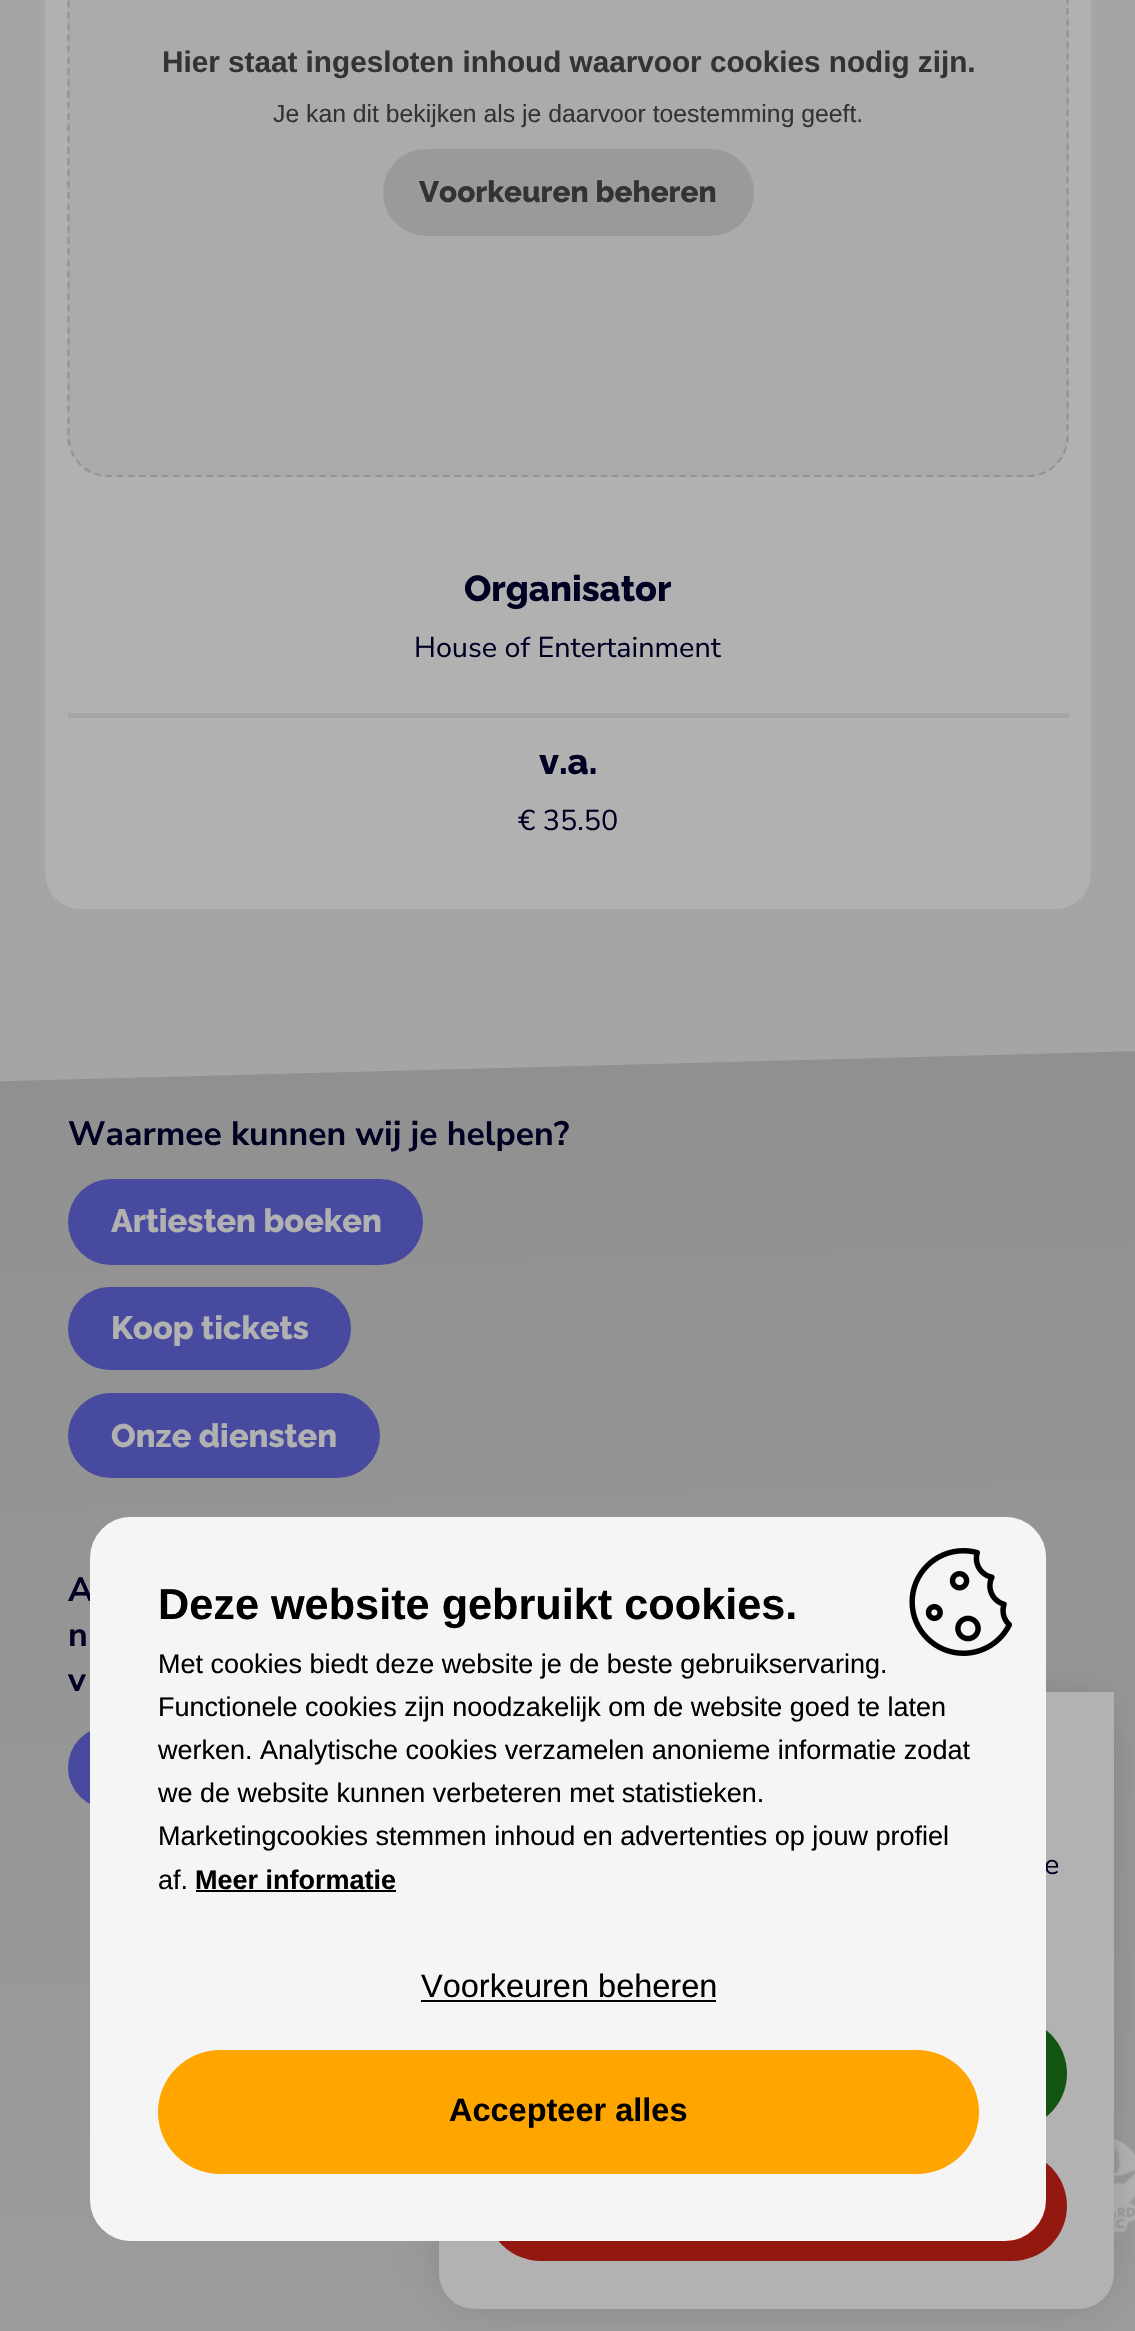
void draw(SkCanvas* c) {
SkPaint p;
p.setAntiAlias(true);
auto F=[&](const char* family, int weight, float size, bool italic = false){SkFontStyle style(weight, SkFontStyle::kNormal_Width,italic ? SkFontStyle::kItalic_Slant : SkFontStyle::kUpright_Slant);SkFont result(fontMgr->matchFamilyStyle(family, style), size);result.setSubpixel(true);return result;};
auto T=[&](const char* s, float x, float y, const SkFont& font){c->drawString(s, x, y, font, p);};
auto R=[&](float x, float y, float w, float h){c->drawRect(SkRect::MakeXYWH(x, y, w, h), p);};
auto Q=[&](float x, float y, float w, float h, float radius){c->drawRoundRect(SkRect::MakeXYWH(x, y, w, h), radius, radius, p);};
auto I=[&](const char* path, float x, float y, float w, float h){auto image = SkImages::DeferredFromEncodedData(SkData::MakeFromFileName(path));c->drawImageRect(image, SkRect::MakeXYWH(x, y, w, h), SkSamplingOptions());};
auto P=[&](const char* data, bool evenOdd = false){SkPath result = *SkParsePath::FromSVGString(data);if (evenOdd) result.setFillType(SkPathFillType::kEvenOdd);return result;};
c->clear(0xffececec);
p.setColor(0xfffefefe);
c->drawPath(P("M81-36h1010v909c0 20-16 36-36 36h-974c-20 0-36-16-36-36v-873c0-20 16-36 36-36z"),p);
p.setColor(0xfff5f5f5);
Q(68,-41,1001,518,41);
p.setStroke(true);
p.setStrokeWidth(2.2);
p.setColor(0xffd3d3d3);
p.setPathEffect(SkDashPathEffect::Make({{6.75f,4.5f}}, 0));
c->drawPath(P("M108-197h920c22 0 39.5 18 39.5 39.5v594c0 21.5-17.5 39.5-39.5 39.5h-920c-21.5 0-39.5-18-39.5-39.5v-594c0-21.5 18-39.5 39.5-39.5z"),p);
p.setPathEffect(nullptr);
auto f1 = F("Liberation Sans",700,29.7);
p.setStroke(false);
p.setColor(0xff494949);
T("Hier staat ingesloten inhoud waarvoor cookies nodig zijn.",162,72,f1);
auto f2 = F("Liberation Sans",400,24.75);
T("Je kan dit bekijken als je daarvoor toestemming geeft.",273,122,f2);
p.setColor(0xffdddddd);
Q(383,149,371,87,43.5);
auto f3 = F("Raleway",800,29.7);
p.setColor(0xff494949);
T("Voorkeuren beheren",419,202,f3);
auto f4 = F("Raleway",800,36);
p.setColor(0xff000032);
T("Organisator",464,601,f4);
auto f5 = F("Nunito Sans",400,28.75);
T("House of Entertainment",414,657,f5);
p.setColor(0xffececec);
R(68,713,1001,5);
p.setColor(0xff000032);
T("v.a.",539,774,f4);
T("€ 35.50",518,830,f5);
{
const SkColor colors[] = {0xffcfcfcf,0xffececec};
const float stops[] = {0,1};
const SkPoint ends[] = {{538,1067}, {598,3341}};
p.setShader(SkGradientShader::MakeLinear(ends, colors, stops, 2, SkTileMode::kClamp));
p.setAlpha(255);
}
c->drawPath(P("M-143 1085l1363-36l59 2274l-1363 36z"),p);
auto f6 = F("Nunito Sans",700,33.75);
p.setShader(nullptr);
p.setColor(0xff000032);
T("Waarmee kunnen wij je helpen?",68,1145,f6);
p.setColor(0xff6569e2);
Q(68,1179,355,86,43);
auto f7 = F("Raleway",800,32.5);
p.setColor(0xfffefefe);
T("Artiesten boeken",111,1232,f7);
p.setColor(0xff6569e2);
Q(68,1287,283,83,41.5);
p.setColor(0xfffefefe);
T("Koop tickets",111,1339,f7);
p.setColor(0xff6569e2);
Q(68,1393,312,85,42.5);
p.setColor(0xfffefefe);
T("Onze diensten",111,1447,f7);
p.setColor(0xff000032);
T("A",68,1601,f6);
T("n",68,1646,f6);
T("v",68,1691,f6);
p.setColor(0xff6569e2);
Q(68,1726,452,83,41.5);
I("1.png",1114,2139,21,94);
p.setColor(0x33000000);
p.setMaskFilter(SkMaskFilter::MakeBlur(kNormal_SkBlurStyle, 22.5));
c->drawRoundRect(SkRect::MakeXYWH(450,1703,653,594),25,25,p);
p.setMaskFilter(nullptr);
p.setColor(0xffffffff);
c->drawPath(P("M475 1692h639v581c0 20-16 36-36 36h-603c-20 0-36-16-36-36v-545c0-20 16-36 36-36z"),p);
p.setColor(0xff000032);
T("e",1044,1874,f5);
p.setColor(0xff1c7818);
Q(486,2018,581,111,55.5);
p.setColor(0xffd32317);
Q(486,2151,581,110,55);
p.setStroke(true);
p.setStrokeWidth(2273);
p.setColor(0x4d000000);
c->drawRoundRect(SkRect::MakeXYWH(-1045.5,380.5,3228,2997),1176.5,1176.5,p);
p.setStroke(false);
p.setColor(0xfff5f5f5);
Q(90,1517,956,724,41);
I("2.png",909,1548,104,108);
auto f8 = F("Liberation Sans",700,43.25);
p.setColor(0xff000000);
T("Deze website gebruikt cookies.",158,1619,f8);
auto f9 = F("Liberation Sans",400,27);
T("Met cookies biedt deze website je de beste gebruikservaring.",158,1673,f9);
T("Functionele cookies zijn noodzakelijk om de website goed te laten",158,1716,f9);
T("werken. Analytische cookies verzamelen anonieme informatie zodat",158,1759,f9);
T("we de website kunnen verbeteren met statistieken.",158,1802,f9);
T("Marketingcookies stemmen inhoud en advertenties op jouw profiel",158,1845,f9);
T("af.",158,1889,f9);
auto f10 = F("Liberation Sans",700,27);
T("Meer informatie",195,1889,f10);
R(196,1890,200,2);
auto f11 = F("Liberation Sans",400,32.5);
T("Voorkeuren beheren",421,1997,f11);
R(421,2000,295,2);
p.setColor(0xffffa500);
Q(158,2050,821,124,62);
auto f12 = F("Liberation Sans",700,32.5);
p.setColor(0xff000000);
T("Accepteer alles",449,2121,f12);
}
